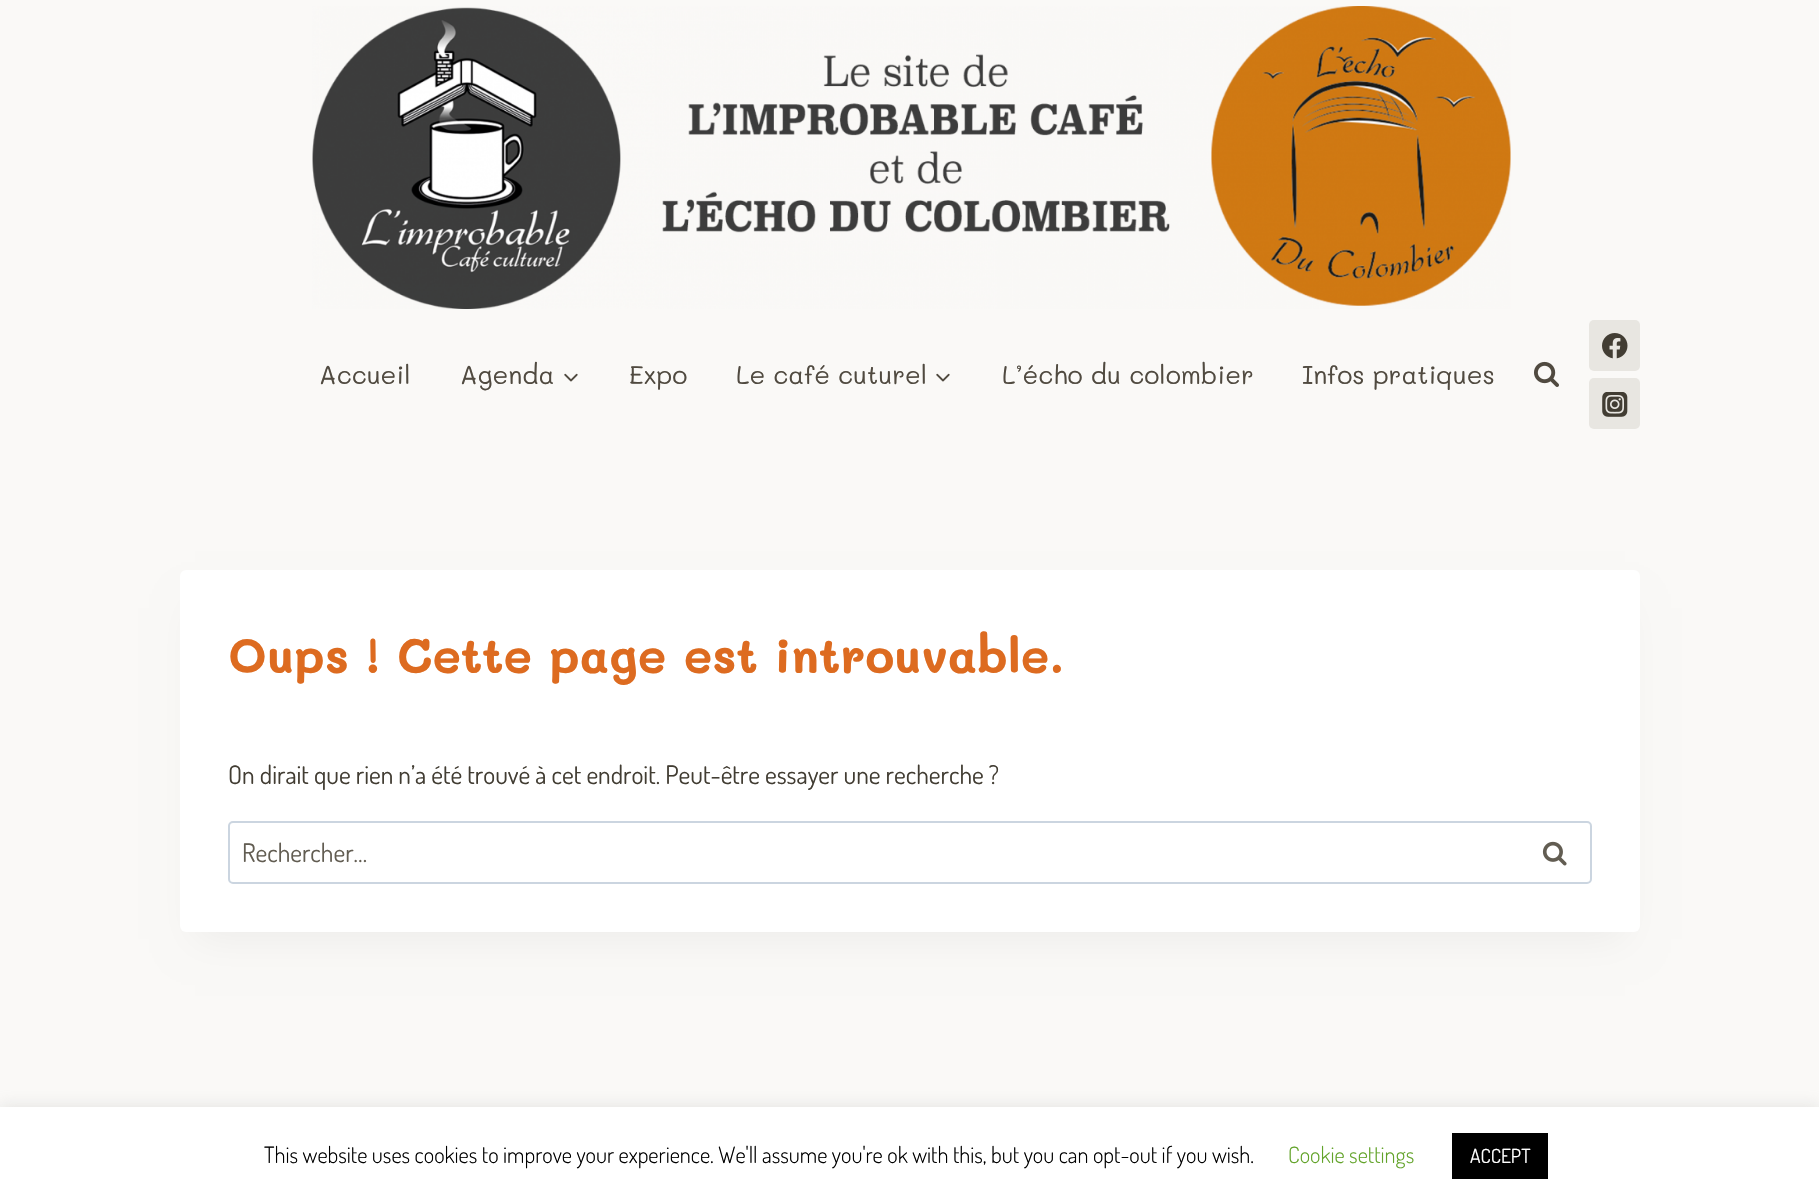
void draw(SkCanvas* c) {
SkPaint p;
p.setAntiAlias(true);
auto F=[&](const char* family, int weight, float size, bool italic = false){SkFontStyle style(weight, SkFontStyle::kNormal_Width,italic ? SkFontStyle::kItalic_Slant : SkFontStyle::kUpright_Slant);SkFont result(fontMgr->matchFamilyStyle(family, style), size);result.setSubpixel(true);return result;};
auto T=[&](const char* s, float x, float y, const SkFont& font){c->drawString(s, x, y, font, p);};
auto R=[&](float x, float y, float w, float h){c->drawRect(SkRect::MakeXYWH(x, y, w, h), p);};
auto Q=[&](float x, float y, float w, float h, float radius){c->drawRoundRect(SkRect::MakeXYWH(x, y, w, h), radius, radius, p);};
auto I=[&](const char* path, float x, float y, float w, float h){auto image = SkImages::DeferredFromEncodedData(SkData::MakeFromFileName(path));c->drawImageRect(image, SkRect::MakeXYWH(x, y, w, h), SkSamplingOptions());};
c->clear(0xfffaf9f7);
I("1.png",312,6,1199,303);
auto f1 = F("Mali",400,25.5);
p.setColor(0xff504a40);
T("Accueil",319,384,f1);
T("Agenda",460,384,f1);
I("2.png",564,373,14,9);
T("Expo",629,384,f1);
T("Le café cuturel",736,384,f1);
I("2.png",936,373,14,9);
T("L’écho du colombier",1002,384,f1);
T("Infos pratiques",1302,384,f1);
I("3.png",1534,361,25,26);
p.setColor(0xffe8e6e1);
Q(1589,320,51,51,5);
I("4.png",1602,333,26,26);
Q(1589,378,51,51,5);
I("5.png",1602,392,26,25);
p.setColor(0x0d000000);
p.setMaskFilter(SkMaskFilter::MakeBlur(kNormal_SkBlurStyle, 19));
c->drawRect(SkRect::MakeXYWH(195,608,1430,331),p);
p.setMaskFilter(nullptr);
p.setColor(0xffffffff);
Q(180,570,1460,362,6);
auto f2 = F("Mali",700,48);
p.setColor(0xffdd6b20);
T("Oups ! Cette page est introuvable.",228,673,f2);
auto f3 = F("Dosis",400,25.5);
p.setColor(0xff423d33);
T("On dirait que rien n’a été trouvé à cet endroit. Peut-être essayer une recherche ?",228,784,f3);
p.setStroke(true);
p.setStrokeWidth(2);
p.setColor(0xffcbd5e0);
c->drawRoundRect(SkRect::MakeXYWH(229,822,1362,61),4,4,p);
p.setStroke(false);
p.setColor(0xff625d52);
T("Rechercher…",242,862,f3);
I("6.png",1542,841,25,25);
p.setColor(0x4dacabab);
p.setMaskFilter(SkMaskFilter::MakeBlur(kNormal_SkBlurStyle, 7.5));
c->drawRect(SkRect::MakeXYWH(0,1106,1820,97),p);
p.setMaskFilter(nullptr);
p.setColor(0xffffffff);
R(0,1107,1819,97);
auto f4 = F("Dosis",300,22.5);
p.setColor(0xff000000);
T("This website uses cookies to improve your experience. We'll assume you're ok with this, but you can opt-out if you wish.",264,1163,f4);
p.setColor(0xff62a329);
T("Cookie settings",1288,1163,f4);
p.setColor(0xff000000);
R(1452,1133,96,46);
auto f5 = F("Dosis",400,19.5);
p.setColor(0xffffffff);
T("ACCEPT",1470,1163,f5);
}
